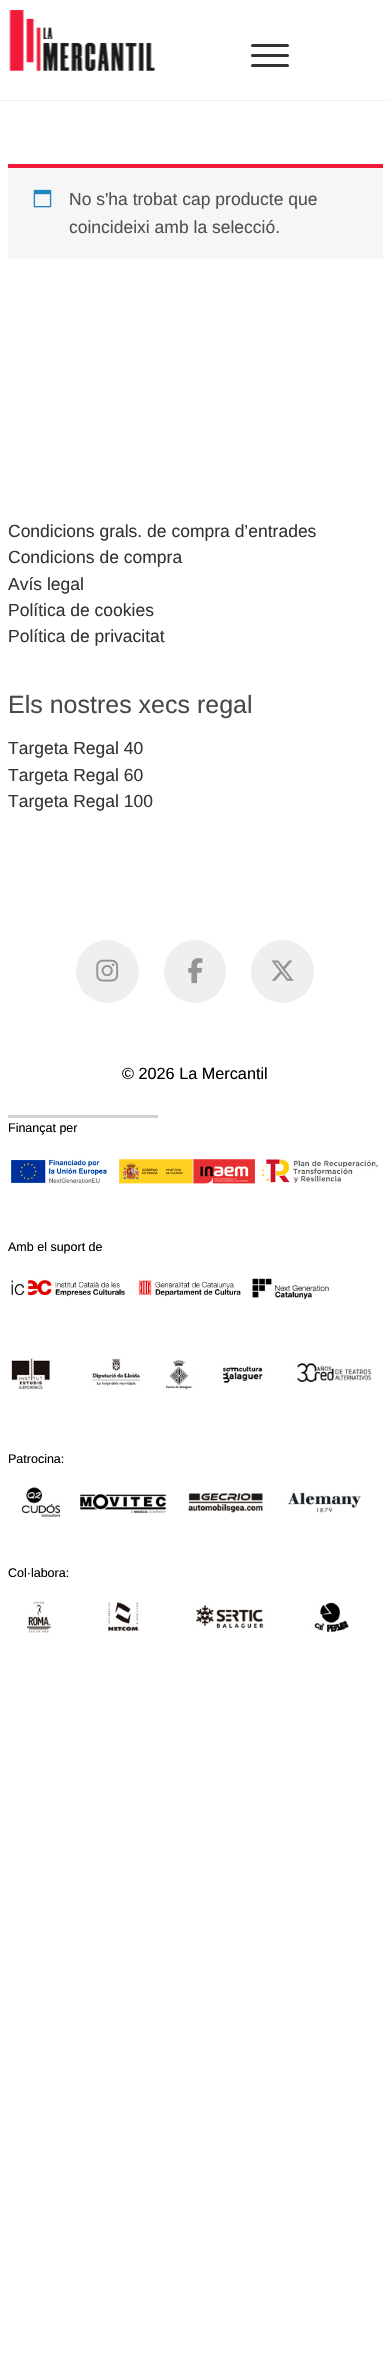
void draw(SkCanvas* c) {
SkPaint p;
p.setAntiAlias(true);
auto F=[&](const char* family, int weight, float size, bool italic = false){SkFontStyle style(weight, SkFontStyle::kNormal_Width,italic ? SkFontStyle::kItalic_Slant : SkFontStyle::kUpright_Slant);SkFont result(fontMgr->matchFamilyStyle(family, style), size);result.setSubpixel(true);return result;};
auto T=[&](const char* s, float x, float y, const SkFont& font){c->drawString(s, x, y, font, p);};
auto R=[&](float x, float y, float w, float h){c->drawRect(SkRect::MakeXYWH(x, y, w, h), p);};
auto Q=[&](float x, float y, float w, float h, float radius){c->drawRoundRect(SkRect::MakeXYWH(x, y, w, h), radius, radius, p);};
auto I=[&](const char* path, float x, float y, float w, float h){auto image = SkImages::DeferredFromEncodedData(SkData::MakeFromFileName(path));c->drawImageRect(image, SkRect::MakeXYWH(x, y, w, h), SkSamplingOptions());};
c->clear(0xffffffff);
p.setColor(0xfff2f2f2);
R(0,100,390,1);
I("1.png",9,10,146,61);
p.setColor(0xff333333);
Q(251,54,38,3,1.5);
Q(251,44,38,3,1.5);
Q(251,64,38,3,1.5);
p.setColor(0xfff7f6f7);
R(8,168,375,91);
p.setColor(0xfff31939);
R(8,164,375,4);
I("2.png",33,189,19,19);
auto f1 = F("Arimo",400,17.5);
p.setColor(0xff515151);
T("No s'ha trobat cap producte que",69,205,f1);
T("coincideixi amb la selecció.",69,233,f1);
p.setColor(0xff343434);
T("Condicions grals. de compra d’entrades",8,537,f1);
T("Condicions de compra",8,563,f1);
T("Avís legal",8,590,f1);
T("Política de cookies",8,616,f1);
T("Política de privacitat",8,642,f1);
auto f2 = F("Arimo",400,25);
p.setColor(0xff484848);
T("Els nostres xecs regal",8,713,f2);
p.setColor(0xff343434);
T("Targeta Regal 40",8,754,f1);
T("Targeta Regal 60",8,781,f1);
T("Targeta Regal 100",8,807,f1);
p.setColor(0xffefefef);
c->drawCircle(107.5,971.5,31.5,p);
I("3.png",96,959,23,23);
Q(164,940,62,63,31);
I("4.png",188,958,15,26);
c->drawCircle(282.5,971.5,31.5,p);
I("5.png",271,960,23,21);
auto f3 = F("Arimo",400,16.25);
p.setColor(0xff000000);
T("© 2026 La Mercantil",122,1079,f3);
p.setColor(0xffd3d3d3);
R(8,1115,150,3);
auto f4 = F("Arimo",400,12.5);
p.setColor(0xff000000);
T("Finançat per",8,1132,f4);
I("6.png",11,1159,367,25);
T("Amb el suport de",8,1251,f4);
I("7.png",11,1278,318,21);
I("8.png",11,1358,360,32);
T("Patrocina:",8,1463,f4);
I("9.png",21,1487,340,30);
T("Col·labora:",8,1577,f4);
I("10.png",26,1601,323,32);
}
